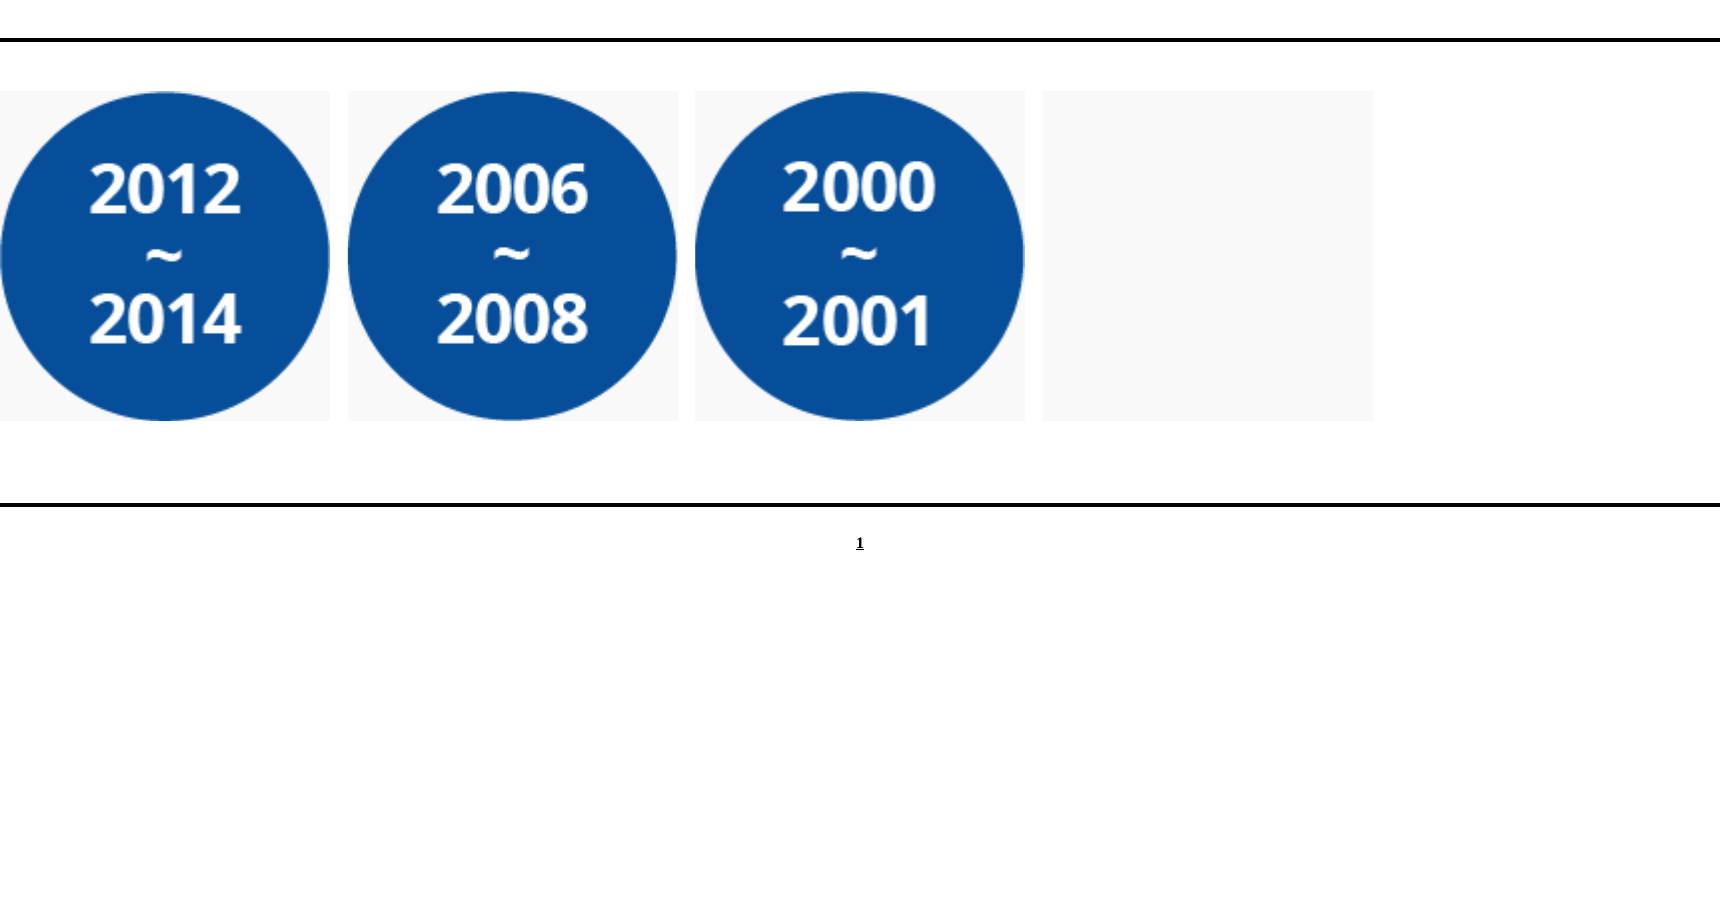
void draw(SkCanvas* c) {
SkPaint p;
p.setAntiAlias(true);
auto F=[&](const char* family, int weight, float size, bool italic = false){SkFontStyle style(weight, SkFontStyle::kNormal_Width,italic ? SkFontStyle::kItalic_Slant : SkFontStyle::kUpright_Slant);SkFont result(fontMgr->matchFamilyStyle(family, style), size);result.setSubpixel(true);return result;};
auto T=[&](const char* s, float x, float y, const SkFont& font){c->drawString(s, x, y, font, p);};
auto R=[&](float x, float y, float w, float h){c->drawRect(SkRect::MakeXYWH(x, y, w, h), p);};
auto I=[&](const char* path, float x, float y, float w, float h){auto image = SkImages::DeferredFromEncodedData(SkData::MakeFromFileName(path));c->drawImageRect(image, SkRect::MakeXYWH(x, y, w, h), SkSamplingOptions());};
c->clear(0xffffffff);
p.setColor(0xff000000);
R(0,38,1720,4);
R(0,503,1720,4);
p.setColor(0xfff9f9f9);
R(0,91,330,330);
I("1.png",0,91,330,331);
R(348,91,330,330);
I("2.png",347,91,331,331);
R(695,91,330,330);
I("3.png",695,91,330,331);
R(1043,91,330,330);
auto f1 = F("Liberation Serif",700,16);
p.setColor(0xff000000);
T("1",856,548,f1);
R(856,549,8,1);
}
